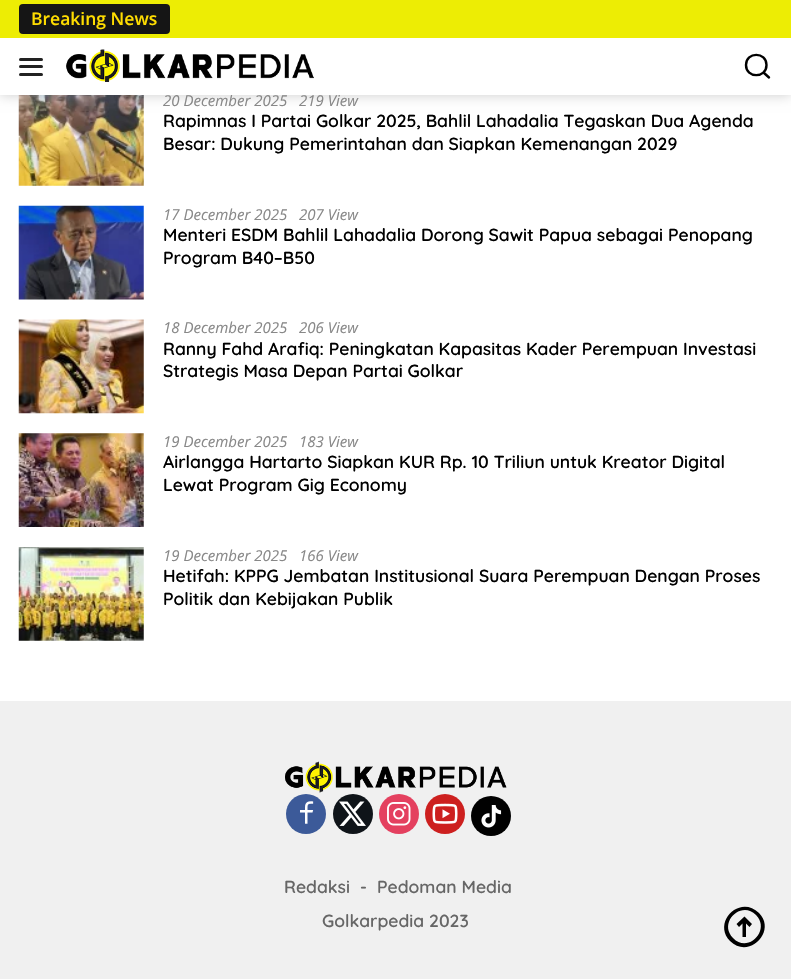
void draw(SkCanvas* c) {
SkPaint p;
p.setAntiAlias(true);
auto F=[&](const char* family, int weight, float size, bool italic = false){SkFontStyle style(weight, SkFontStyle::kNormal_Width,italic ? SkFontStyle::kItalic_Slant : SkFontStyle::kUpright_Slant);SkFont result(fontMgr->matchFamilyStyle(family, style), size);result.setSubpixel(true);return result;};
auto T=[&](const char* s, float x, float y, const SkFont& font){c->drawString(s, x, y, font, p);};
auto R=[&](float x, float y, float w, float h){c->drawRect(SkRect::MakeXYWH(x, y, w, h), p);};
auto Q=[&](float x, float y, float w, float h, float radius){c->drawRoundRect(SkRect::MakeXYWH(x, y, w, h), radius, radius, p);};
auto I=[&](const char* path, float x, float y, float w, float h){auto image = SkImages::DeferredFromEncodedData(SkData::MakeFromFileName(path));c->drawImageRect(image, SkRect::MakeXYWH(x, y, w, h), SkSamplingOptions());};
auto P=[&](const char* data, bool evenOdd = false){SkPath result = *SkParsePath::FromSVGString(data);if (evenOdd) result.setFillType(SkPathFillType::kEvenOdd);return result;};
c->clear(0xffffffff);
I("2.png",18,95,126,91);
p.setColor(0x33000000);
p.setMaskFilter(SkMaskFilter::MakeBlur(kNormal_SkBlurStyle, 6));
c->drawRect(SkRect::MakeXYWH(0,0,791,95),p);
p.setMaskFilter(nullptr);
auto f1 = F("Open Sans",400,15,true);
p.setColor(0xff888888);
T("20 December 2025",163,106,f1);
p.setColor(0xffffffff);
R(0,38,791,57);
p.setColor(0xffeded04);
R(0,0,791,38);
p.setColor(0xff151515);
Q(19,4,151,30,4);
auto f2 = F("Open Sans",600,17.5);
p.setColor(0xffffdd00);
T("Breaking News",31,25,f2);
p.setColor(0xff222222);
Q(19,58,24,3,1.5);
Q(19,65,24,3,1.5);
Q(19,73,24,3,1.5);
I("1.png",66,49,248,33);
p.setStroke(true);
p.setStrokeWidth(2.4);
p.setStrokeCap(SkPaint::kRound_Cap);
p.setColor(0xff000000);
c->drawPath(P("M769 77.5l-5.5-5m3-7.5c0 13.5-20.5 13.5-20.5 0c0-13.5 20.5-13.5 20.5 0z"),p);
p.setStroke(false);
p.setColor(0xff888888);
T("219 View",299,106,f1);
auto f3 = F("Quicksand",600,17.5);
p.setColor(0xff000000);
T("Rapimnas I Partai Golkar 2025, Bahlil Lahadalia Tegaskan Dua Agenda",163,127,f3);
T("Besar: Dukung Pemerintahan dan Siapkan Kemenangan 2029",163,150,f3);
I("3.png",18,205,126,95);
p.setColor(0xff888888);
T("17 December 2025",163,220,f1);
T("207 View",299,220,f1);
p.setColor(0xff000000);
T("Menteri ESDM Bahlil Lahadalia Dorong Sawit Papua sebagai Penopang",163,241,f3);
T("Program B40–B50",163,264,f3);
I("4.png",18,319,126,95);
p.setColor(0xff888888);
T("18 December 2025",163,333,f1);
T("206 View",299,333,f1);
p.setColor(0xff000000);
T("Ranny Fahd Arafiq: Peningkatan Kapasitas Kader Perempuan Investasi",163,355,f3);
T("Strategis Masa Depan Partai Golkar",163,377,f3);
I("5.png",18,433,126,94);
p.setColor(0xff888888);
T("19 December 2025",163,447,f1);
T("183 View",299,447,f1);
p.setColor(0xff000000);
T("Airlangga Hartarto Siapkan KUR Rp. 10 Triliun untuk Kreator Digital",163,468,f3);
T("Lewat Program Gig Economy",163,491,f3);
I("6.png",18,547,126,94);
p.setColor(0xff888888);
T("19 December 2025",163,561,f1);
T("166 View",299,561,f1);
p.setColor(0xff000000);
T("Hetifah: KPPG Jembatan Institusional Suara Perempuan Dengan Proses",163,582,f3);
T("Politik dan Kebijakan Publik",163,605,f3);
p.setColor(0xfff0f0f0);
R(0,701,791,278);
I("7.png",285,761,222,32);
p.setColor(0xff3c5a99);
c->drawCircle(306,814,20,p);
I("8.png",300,801,14,23);
p.setColor(0xff0f1419);
c->drawCircle(353,814,20,p);
I("9.png",339,801,27,25);
p.setColor(0xffe4405f);
c->drawCircle(399,814,20,p);
I("10.png",387,802,24,24);
p.setColor(0xffcd201f);
c->drawCircle(445,814,20,p);
I("11.png",432,803,26,21);
p.setColor(0xff010101);
c->drawCircle(491,816,20,p);
I("12.png",481,805,21,23);
p.setColor(0xff666666);
T("Redaksi",284,893,f3);
T("-",360,893,f3);
T("Pedoman Media",377,893,f3);
T("Golkarpedia 2023",322,927,f3);
p.setColor(0xff000000);
c->drawPath(P("M749.5 927l2.5-3l-7.5-7.5l-8 7.5l2.5 3l3.5-3.5v13.5h3.5v-13.5z"),p);
c->drawPath(P("M759 913c-19-19-47 9-29 28c19 19 47-10 29-28zm-3 2c-15-15-38 8-23 23c15 16 38-8 23-23z",true),p);
}
